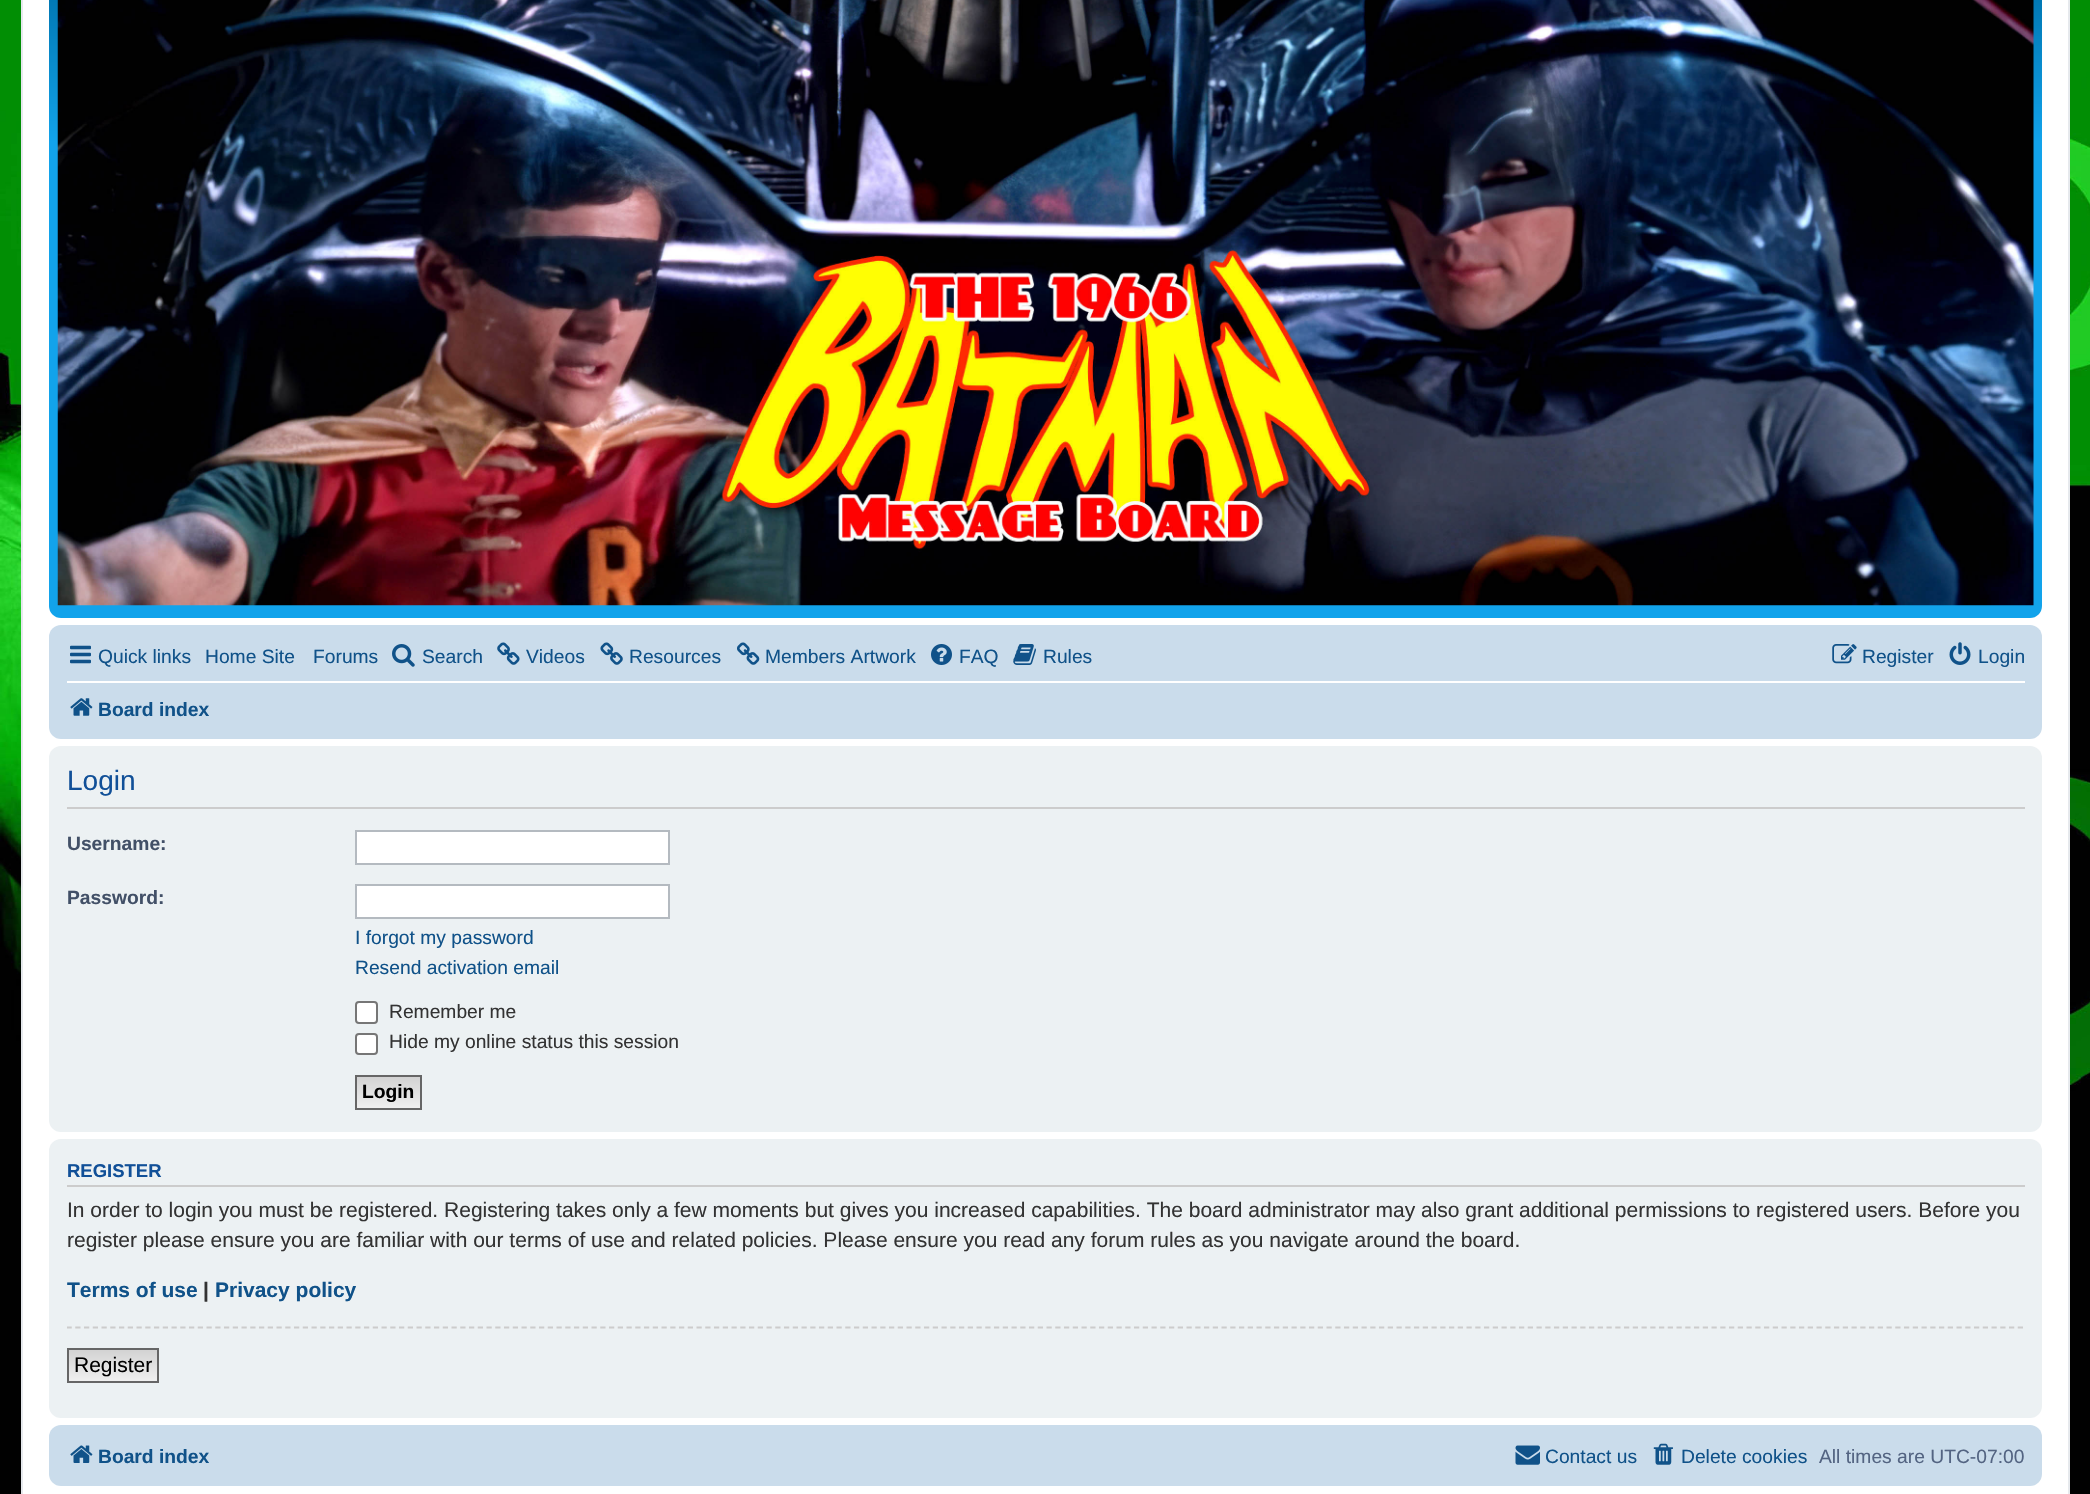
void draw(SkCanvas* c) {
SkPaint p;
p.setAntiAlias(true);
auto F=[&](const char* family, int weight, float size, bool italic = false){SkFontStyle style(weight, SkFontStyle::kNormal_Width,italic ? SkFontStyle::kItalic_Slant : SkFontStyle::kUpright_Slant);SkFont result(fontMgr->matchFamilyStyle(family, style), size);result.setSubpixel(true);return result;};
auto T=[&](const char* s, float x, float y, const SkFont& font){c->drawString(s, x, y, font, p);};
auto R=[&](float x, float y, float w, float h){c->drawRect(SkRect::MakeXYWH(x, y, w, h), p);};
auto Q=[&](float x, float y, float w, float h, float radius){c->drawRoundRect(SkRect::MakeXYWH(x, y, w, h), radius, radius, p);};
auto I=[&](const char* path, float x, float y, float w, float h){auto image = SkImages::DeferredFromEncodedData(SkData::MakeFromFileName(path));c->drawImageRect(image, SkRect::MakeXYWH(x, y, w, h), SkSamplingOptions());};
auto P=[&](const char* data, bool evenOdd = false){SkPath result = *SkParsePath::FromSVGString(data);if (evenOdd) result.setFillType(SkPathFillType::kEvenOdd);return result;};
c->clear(0xffffffff);
I("1.png",0,0,2090,1494);
p.setColor(0xffffffff);
c->drawRect(SkRect::MakeXYWH(22,-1,2047,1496),p);
p.setStroke(true);
p.setStrokeWidth(2);
p.setColor(0xffe6e9ed);
c->drawRect(SkRect::MakeXYWH(22,-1,2047,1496),p);
p.setStroke(false);
{
const SkColor colors[] = {0xff6aceff,0xff0076b1,0xff12a3eb,0xff12a3eb};
const float stops[] = {0,.01,.25,1};
const SkPoint ends[] = {{1046,-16}, {1046,618}};
p.setShader(SkGradientShader::MakeLinear(ends, colors, stops, 4, SkTileMode::kClamp));
p.setAlpha(255);
}
Q(49,-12,1993,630,12);
I("2.png",57,0,1977,606);
p.setShader(nullptr);
p.setColor(0xffcadceb);
Q(49,625,1993,114,12);
I("3.png",70,645,21,19);
auto f1 = F("Liberation Sans",400,19.25);
p.setColor(0xff105289);
T("Quick links",98,663,f1);
T("Home Site",205,663,f1);
T("Forums",313,663,f1);
I("4.png",392,644,23,23);
T("Search",422,663,f1);
I("5.png",497,642,23,23);
T("Videos",526,663,f1);
I("6.png",600,642,23,23);
T("Resources",629,663,f1);
I("7.png",737,642,23,23);
T("Members Artwork",765,663,f1);
I("8.png",931,644,21,21);
T("FAQ",959,663,f1);
I("9.png",1013,644,23,21);
T("Rules",1043,663,f1);
I("10.png",1832,644,25,20);
T("Register",1862,663,f1);
I("11.png",1949,642,22,23);
T("Login",1978,663,f1);
p.setColor(0xffffffff);
R(67,681,1958,2);
I("12.png",70,698,23,18);
auto f2 = F("Liberation Sans",700,19.25);
p.setColor(0xff105289);
T("Board index",98,716,f2);
p.setColor(0xffecf1f3);
Q(49,746,1993,386,12);
p.setColor(0xffcccccc);
R(67,807,1958,2);
auto f3 = F("Liberation Sans",400,28);
p.setColor(0xff115098);
T("Login",67,790,f3);
p.setColor(0xff425067);
T("Username:",67,850,f2);
p.setColor(0xffffffff);
c->drawRect(SkRect::MakeXYWH(356,831,313,33),p);
p.setStroke(true);
p.setColor(0xffb4bac0);
c->drawRect(SkRect::MakeXYWH(356,831,313,33),p);
p.setStroke(false);
p.setColor(0xff425067);
T("Password:",67,904,f2);
p.setColor(0xffffffff);
c->drawRect(SkRect::MakeXYWH(356,885,313,33),p);
p.setStroke(true);
p.setColor(0xffb4bac0);
c->drawRect(SkRect::MakeXYWH(356,885,313,33),p);
p.setStroke(false);
p.setColor(0xff105289);
T("I forgot my password",355,944,f1);
T("Resend activation email",355,974,f1);
p.setColor(0xffffffff);
c->drawRoundRect(SkRect::MakeXYWH(356,1002,21,21),3,3,p);
p.setStroke(true);
p.setColor(0xff767676);
c->drawRoundRect(SkRect::MakeXYWH(356,1002,21,21),3,3,p);
p.setStroke(false);
p.setColor(0xff333333);
T("Remember me",389,1018,f1);
p.setColor(0xffffffff);
c->drawRoundRect(SkRect::MakeXYWH(356,1034,21,20),3,3,p);
p.setStroke(true);
p.setColor(0xff767676);
c->drawRoundRect(SkRect::MakeXYWH(356,1034,21,20),3,3,p);
p.setStroke(false);
p.setColor(0xff333333);
T("Hide my online status this session",389,1048,f1);
{
const SkColor colors[] = {0xffd2d2d2,0xffefefef};
const float stops[] = {0,1};
const SkPoint ends[] = {{389,1076}, {389,1108}};
p.setShader(SkGradientShader::MakeLinear(ends, colors, stops, 2, SkTileMode::kClamp));
p.setAlpha(255);
}
R(357,1077,63,31);
p.setStroke(true);
p.setShader(nullptr);
p.setColor(0xff666666);
c->drawRect(SkRect::MakeXYWH(356,1076,65,33),p);
p.setStroke(false);
p.setColor(0xff000000);
T("Login",362,1098,f2);
p.setColor(0xffecf1f3);
Q(49,1139,1993,279,12);
p.setColor(0xffcccccc);
R(67,1185,1958,2);
auto f4 = F("Liberation Sans",700,18.5);
p.setColor(0xff115098);
T("REGISTER",67,1177,f4);
auto f5 = F("Liberation Sans",400,21);
p.setColor(0xff333333);
T("In order to login you must be registered. Registering takes only a few moments but gives you increased capabilities. The board administrator may also grant additional permissions to registered users. Before you",67,1217,f5);
T("register please ensure you are familiar with our terms of use and related policies. Please ensure you read any forum rules as you navigate around the board.",67,1247,f5);
c->save();
c->clipRect(SkRect::MakeXYWH(67,1148,1958,261));
auto f6 = F("Liberation Sans",700,21);
p.setColor(0xff105289);
T("Terms of use",67,1297,f6);
c->restore();
p.setColor(0xff333333);
T("|",203,1297,f6);
p.setColor(0xff105289);
T("Privacy policy",215,1297,f6);
c->save();
c->clipRect(SkRect::MakeXYWH(67,1148,1958,261));
p.setStroke(true);
p.setStrokeWidth(1.8);
p.setColor(0xffcccccc);
p.setPathEffect(SkDashPathEffect::Make({{5.25f,3.5f}}, 0));
c->drawPath(P("M66.5 1327.5h1958.5"),p);
p.setPathEffect(nullptr);
c->restore();
p.setStroke(false);
{
const SkColor colors[] = {0xffd2d2d2,0xffefefef};
const float stops[] = {0,1};
const SkPoint ends[] = {{113,1349}, {113,1381}};
p.setShader(SkGradientShader::MakeLinear(ends, colors, stops, 2, SkTileMode::kClamp));
p.setAlpha(255);
}
R(69,1350,88,31);
p.setStroke(true);
p.setStrokeWidth(2);
p.setShader(nullptr);
p.setColor(0xff666666);
c->drawRect(SkRect::MakeXYWH(68,1349,90,33),p);
p.setStroke(false);
p.setColor(0xff000000);
T("Register",74,1372,f5);
p.setColor(0xffcadceb);
Q(49,1425,1993,61,12);
I("13.png",70,1445,23,18);
p.setColor(0xff105289);
T("Board index",98,1463,f2);
I("14.png",1515,1445,25,20);
T("Contact us",1545,1463,f1);
I("15.png",1653,1443,20,22);
T("Delete cookies",1681,1463,f1);
p.setColor(0xff536482);
T("All times are UTC-07:00",1819,1463,f1);
}
